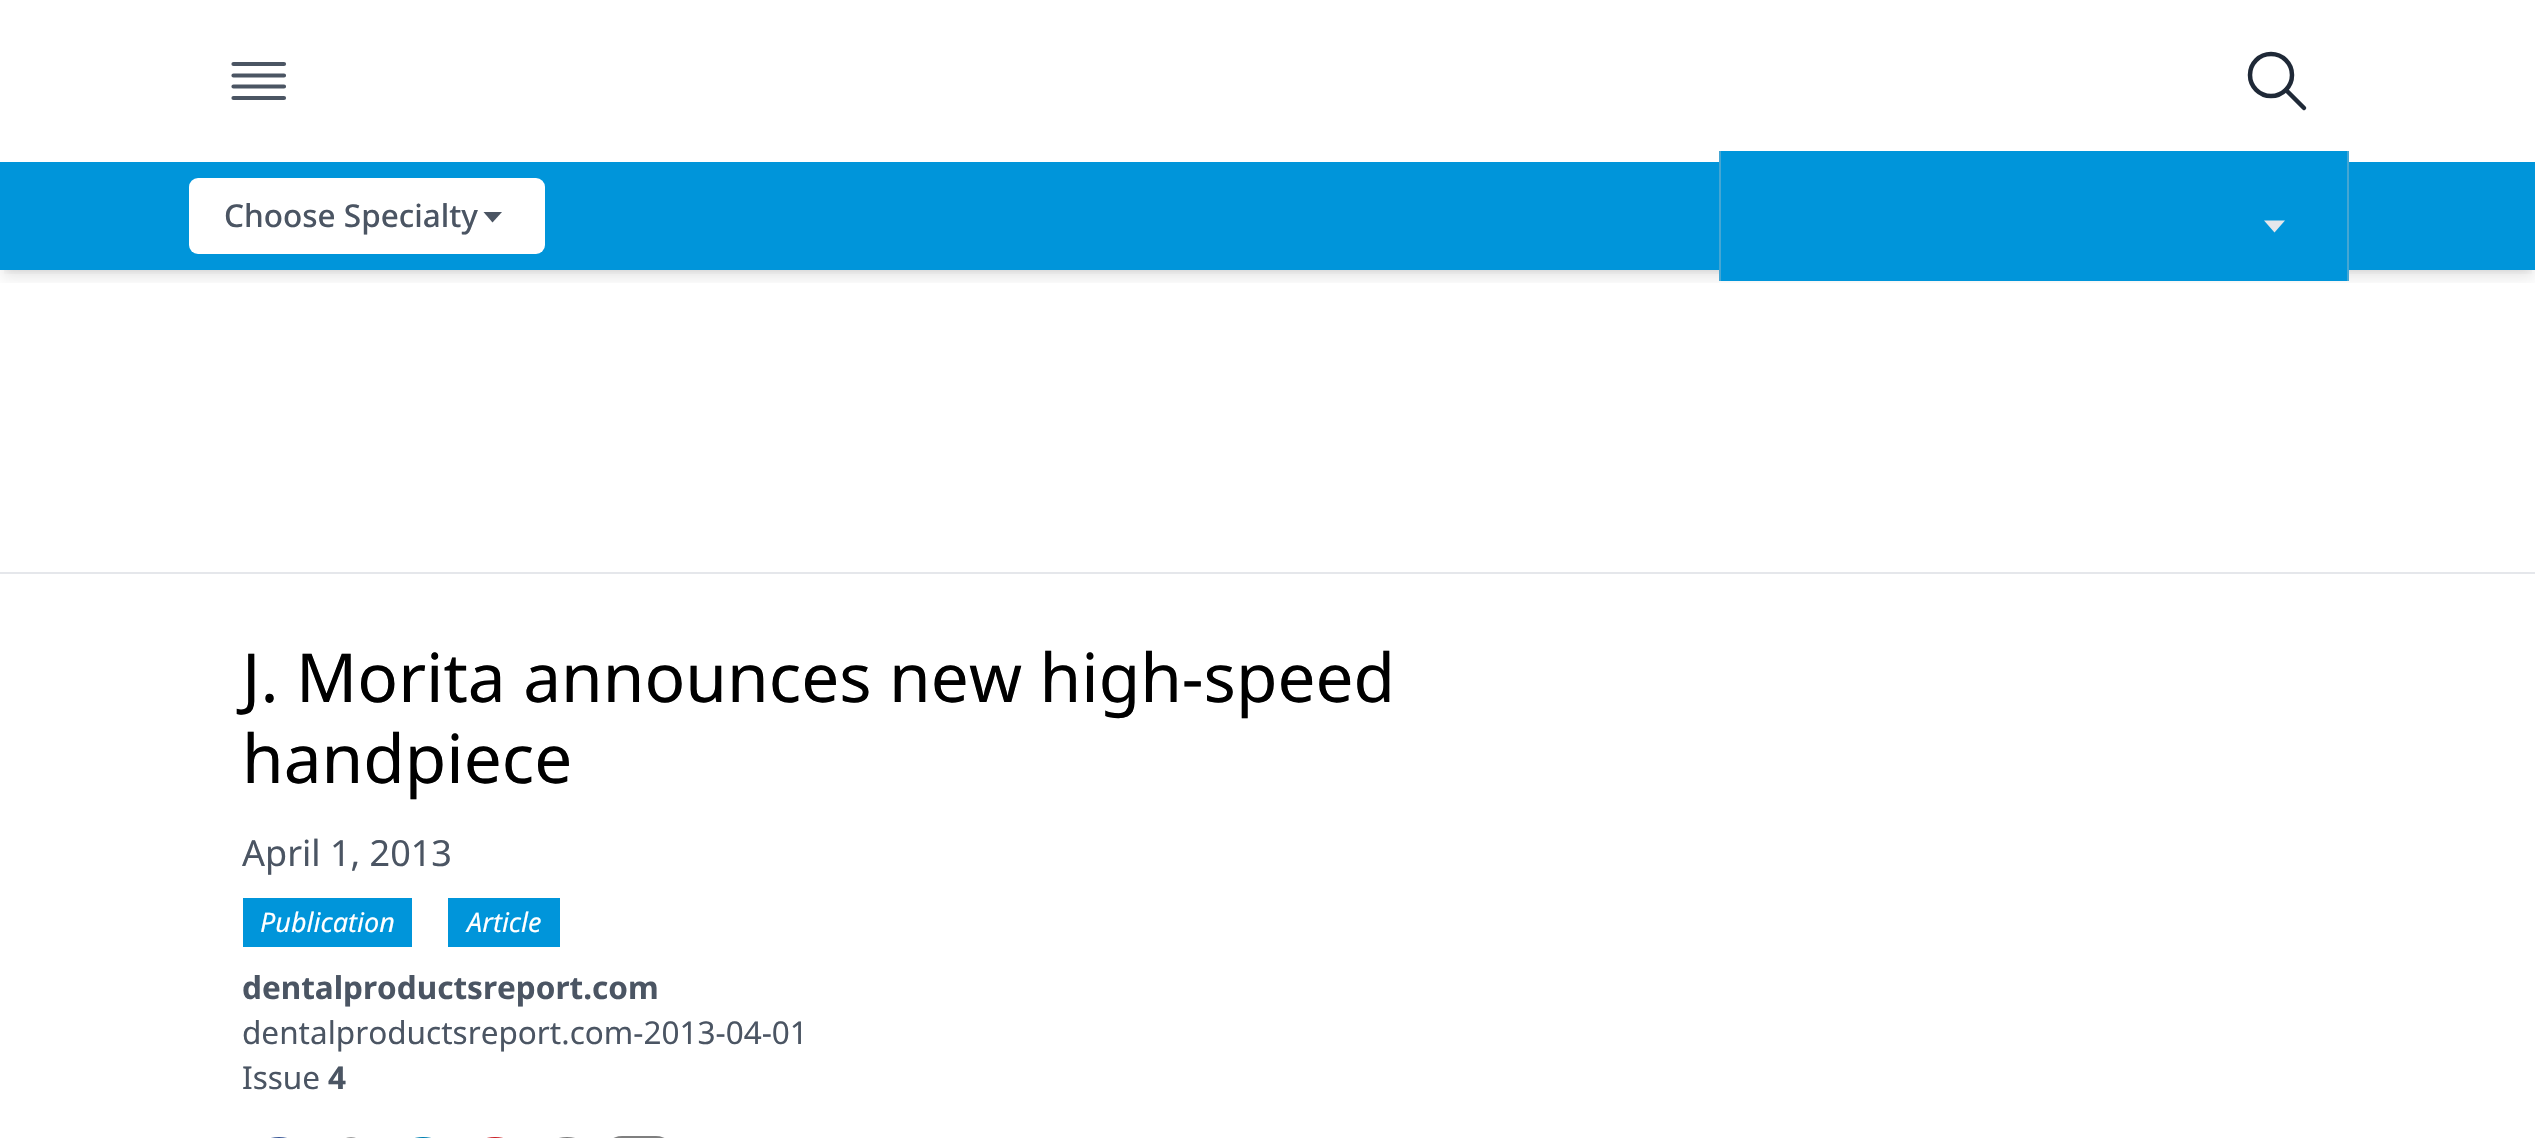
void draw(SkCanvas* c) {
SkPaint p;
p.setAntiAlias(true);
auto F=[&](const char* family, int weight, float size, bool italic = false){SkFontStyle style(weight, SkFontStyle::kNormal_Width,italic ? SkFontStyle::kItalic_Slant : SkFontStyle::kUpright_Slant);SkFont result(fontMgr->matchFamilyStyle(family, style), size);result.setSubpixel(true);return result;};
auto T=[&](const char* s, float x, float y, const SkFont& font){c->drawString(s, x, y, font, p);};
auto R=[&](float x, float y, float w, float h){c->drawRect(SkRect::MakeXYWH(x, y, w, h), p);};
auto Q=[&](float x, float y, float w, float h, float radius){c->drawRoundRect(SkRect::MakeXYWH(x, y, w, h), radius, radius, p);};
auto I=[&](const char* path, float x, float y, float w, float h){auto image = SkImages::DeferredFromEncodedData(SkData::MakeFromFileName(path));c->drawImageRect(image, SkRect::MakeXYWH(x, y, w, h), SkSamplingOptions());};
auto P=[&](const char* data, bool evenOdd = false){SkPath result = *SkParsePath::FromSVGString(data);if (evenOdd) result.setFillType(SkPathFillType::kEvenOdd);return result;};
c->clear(0xffffffff);
c->save();
c->clipRect(SkRect::MakeXYWH(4,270,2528,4));
p.setColor(0x1a000000);
p.setMaskFilter(SkMaskFilter::MakeBlur(kNormal_SkBlurStyle, 4.5));
c->drawRect(SkRect::MakeXYWH(5,9,2526,261),p);
p.setMaskFilter(nullptr);
c->restore();
c->save();
c->clipRect(SkRect::MakeXYWH(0,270,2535,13));
p.setMaskFilter(SkMaskFilter::MakeBlur(kNormal_SkBlurStyle, 7));
c->drawRect(SkRect::MakeXYWH(2,11,2532,266),p);
p.setMaskFilter(nullptr);
c->restore();
p.setStroke(true);
p.setStrokeWidth(4.2);
p.setStrokeCap(SkPaint::kRound_Cap);
p.setStrokeJoin(SkPaint::kRound_Join);
p.setColor(0xff4b5563);
c->drawPath(P("M284 75.5h-50.5m50.5-11.5h-50.5m50.5 22.5h-50.5m50.5 11.5h-50.5"),p);
p.setStrokeWidth(4.5);
p.setStrokeCap(SkPaint::kButt_Cap);
p.setStrokeJoin(SkPaint::kMiter_Join);
p.setColor(0xff1f2937);
c->drawCircle(2271,75,21,p);
p.setStrokeCap(SkPaint::kRound_Cap);
p.setStrokeJoin(SkPaint::kRound_Join);
c->drawPath(P("M2304 108l-18-18"),p);
p.setStroke(false);
p.setColor(0xff0095da);
R(0,162,2535,108);
p.setColor(0xffffffff);
Q(189,178,356,76,9);
auto f1 = F("Noto Sans",500,31.5);
p.setColor(0xff4b5563);
T("Choose Specialty",224,227,f1);
c->drawPath(P("M492.5 222.5l9.5-10.5h-18.5z"),p);
p.setColor(0xff0095da);
R(1721,151,626,130);
p.setColor(0xff45a6d3);
R(2347,151,2,130);
R(1719,151,2,130);
p.setColor(0xffe5e7eb);
c->drawPath(P("M2274.5 232.5l10.5-12h-21z"),p);
R(0,572,2535,2);
auto f2 = F("Noto Sans",400,67.5);
p.setColor(0xff000000);
T("J. Morita announces new high-speed",242,702,f2);
T("handpiece",242,783,f2);
auto f3 = F("Noto Sans",400,36);
p.setColor(0xff4b5563);
T("April 1, 2013",242,866,f3);
p.setColor(0xff0095da);
R(243,898,169,49);
auto f4 = F("Noto Sans",400,27,true);
p.setColor(0xffffffff);
T("Publication",260,932,f4);
p.setColor(0xff0095da);
R(448,898,112,49);
p.setColor(0xffffffff);
T("Article",467,932,f4);
auto f5 = F("Noto Sans",700,31.5);
p.setColor(0xff4b5563);
T("dentalproductsreport.com",242,999,f5);
auto f6 = F("Noto Sans",400,31.5);
T("dentalproductsreport.com-2013-04-01",242,1044,f6);
T("Issue",242,1089,f6);
T("4",328,1089,f5);
p.setColor(0xff3b5998);
c->drawCircle(279,1172,35,p);
I("1.png",346,1137,10,1);
I("2.png",415,1137,16,1);
I("3.png",487,1137,16,1);
p.setColor(0xff7f7f7f);
c->drawCircle(567,1172,35,p);
Q(603,1136,72,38,36);
}
